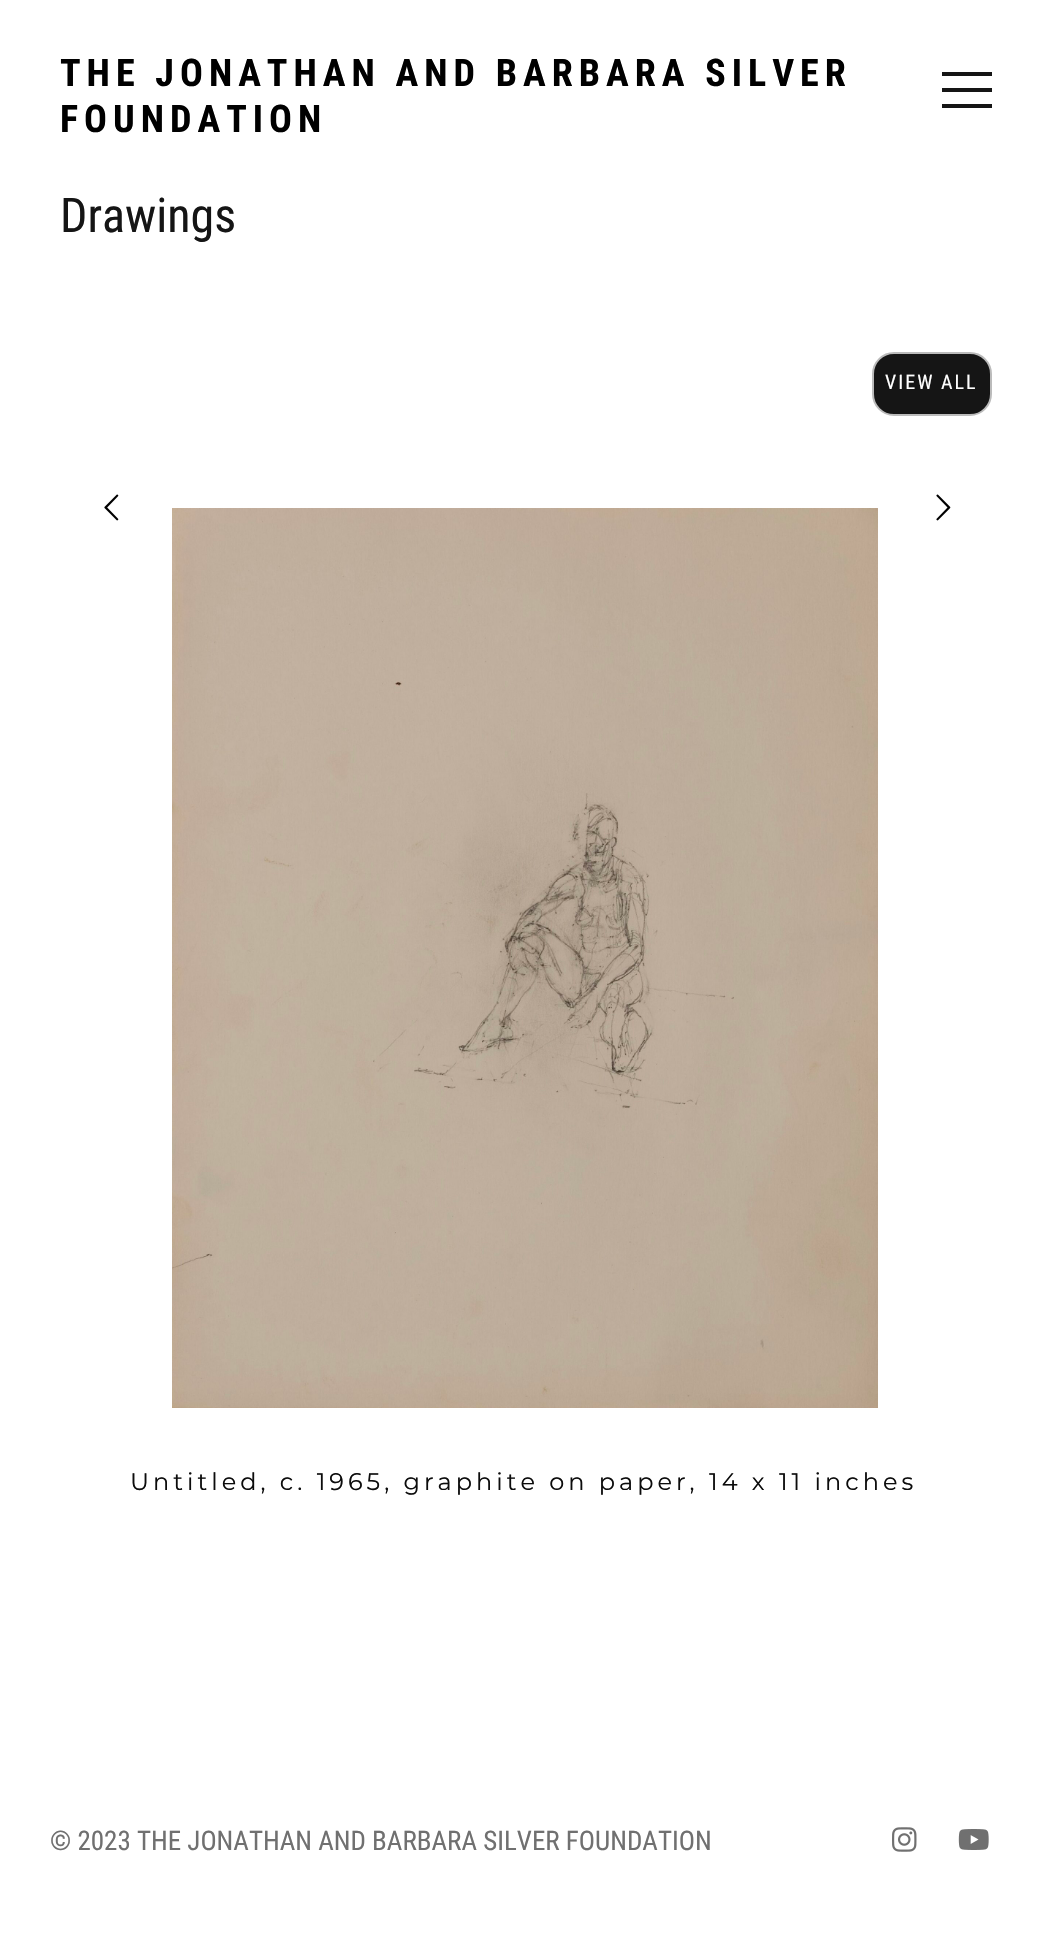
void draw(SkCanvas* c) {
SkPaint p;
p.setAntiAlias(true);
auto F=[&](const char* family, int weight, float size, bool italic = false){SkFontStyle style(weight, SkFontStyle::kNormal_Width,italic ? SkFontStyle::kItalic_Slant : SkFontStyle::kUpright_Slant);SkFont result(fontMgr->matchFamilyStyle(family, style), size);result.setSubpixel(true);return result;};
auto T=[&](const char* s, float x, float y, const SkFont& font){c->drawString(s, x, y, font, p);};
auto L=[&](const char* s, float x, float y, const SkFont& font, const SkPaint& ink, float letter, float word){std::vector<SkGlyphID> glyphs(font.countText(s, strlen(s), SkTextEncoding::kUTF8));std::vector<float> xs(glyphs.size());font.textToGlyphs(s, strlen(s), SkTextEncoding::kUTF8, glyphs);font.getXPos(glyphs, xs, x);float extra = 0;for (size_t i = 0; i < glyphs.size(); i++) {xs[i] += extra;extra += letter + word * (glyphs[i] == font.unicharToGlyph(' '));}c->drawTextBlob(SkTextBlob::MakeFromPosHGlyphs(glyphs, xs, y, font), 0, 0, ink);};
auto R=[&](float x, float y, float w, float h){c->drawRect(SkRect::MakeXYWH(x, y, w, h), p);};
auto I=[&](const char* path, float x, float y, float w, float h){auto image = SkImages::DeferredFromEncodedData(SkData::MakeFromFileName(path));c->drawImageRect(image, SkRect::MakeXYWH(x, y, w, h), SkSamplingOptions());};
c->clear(0xffffffff);
auto f1 = F("Roboto Condensed",700,38);
p.setColor(0xff000000);
L("THE JONATHAN AND BARBARA SILVER",60,86,f1,p,6,0);
L("FOUNDATION",60,132,f1,p,6,0);
p.setColor(0xff151515);
R(942,88,50,4);
R(942,72,50,4);
R(942,104,50,4);
auto f2 = F("Roboto Condensed",400,48);
T("Drawings",60,232,f2);
c->drawRoundRect(SkRect::MakeXYWH(873,353,118,62),21,21,p);
p.setStroke(true);
p.setStrokeWidth(2);
p.setColor(0xffbbbbbb);
c->drawRoundRect(SkRect::MakeXYWH(873,353,118,62),21,21,p);
auto f3 = F("Roboto Condensed",400,20);
p.setStroke(false);
p.setColor(0xffffffff);
L("VIEW ALL",885,389,f3,p,2,0);
I("1.png",104,494,15,27);
I("2.png",936,494,15,27);
I("3.png",172,508,706,900);
auto f4 = F("Montserrat",100,24);
p.setColor(0xff0c0c0c);
L("Untitled, c. 1965, graphite on paper, 14 x 11 inches",130,1490,f4,p,4,0);
auto f5 = F("Roboto Condensed",400,27);
p.setColor(0xff707070);
T("© 2023 THE JONATHAN AND BARBARA SILVER FOUNDATION",50,1850,f5);
I("4.png",892,1827,25,25);
I("5.png",958,1829,31,21);
}
